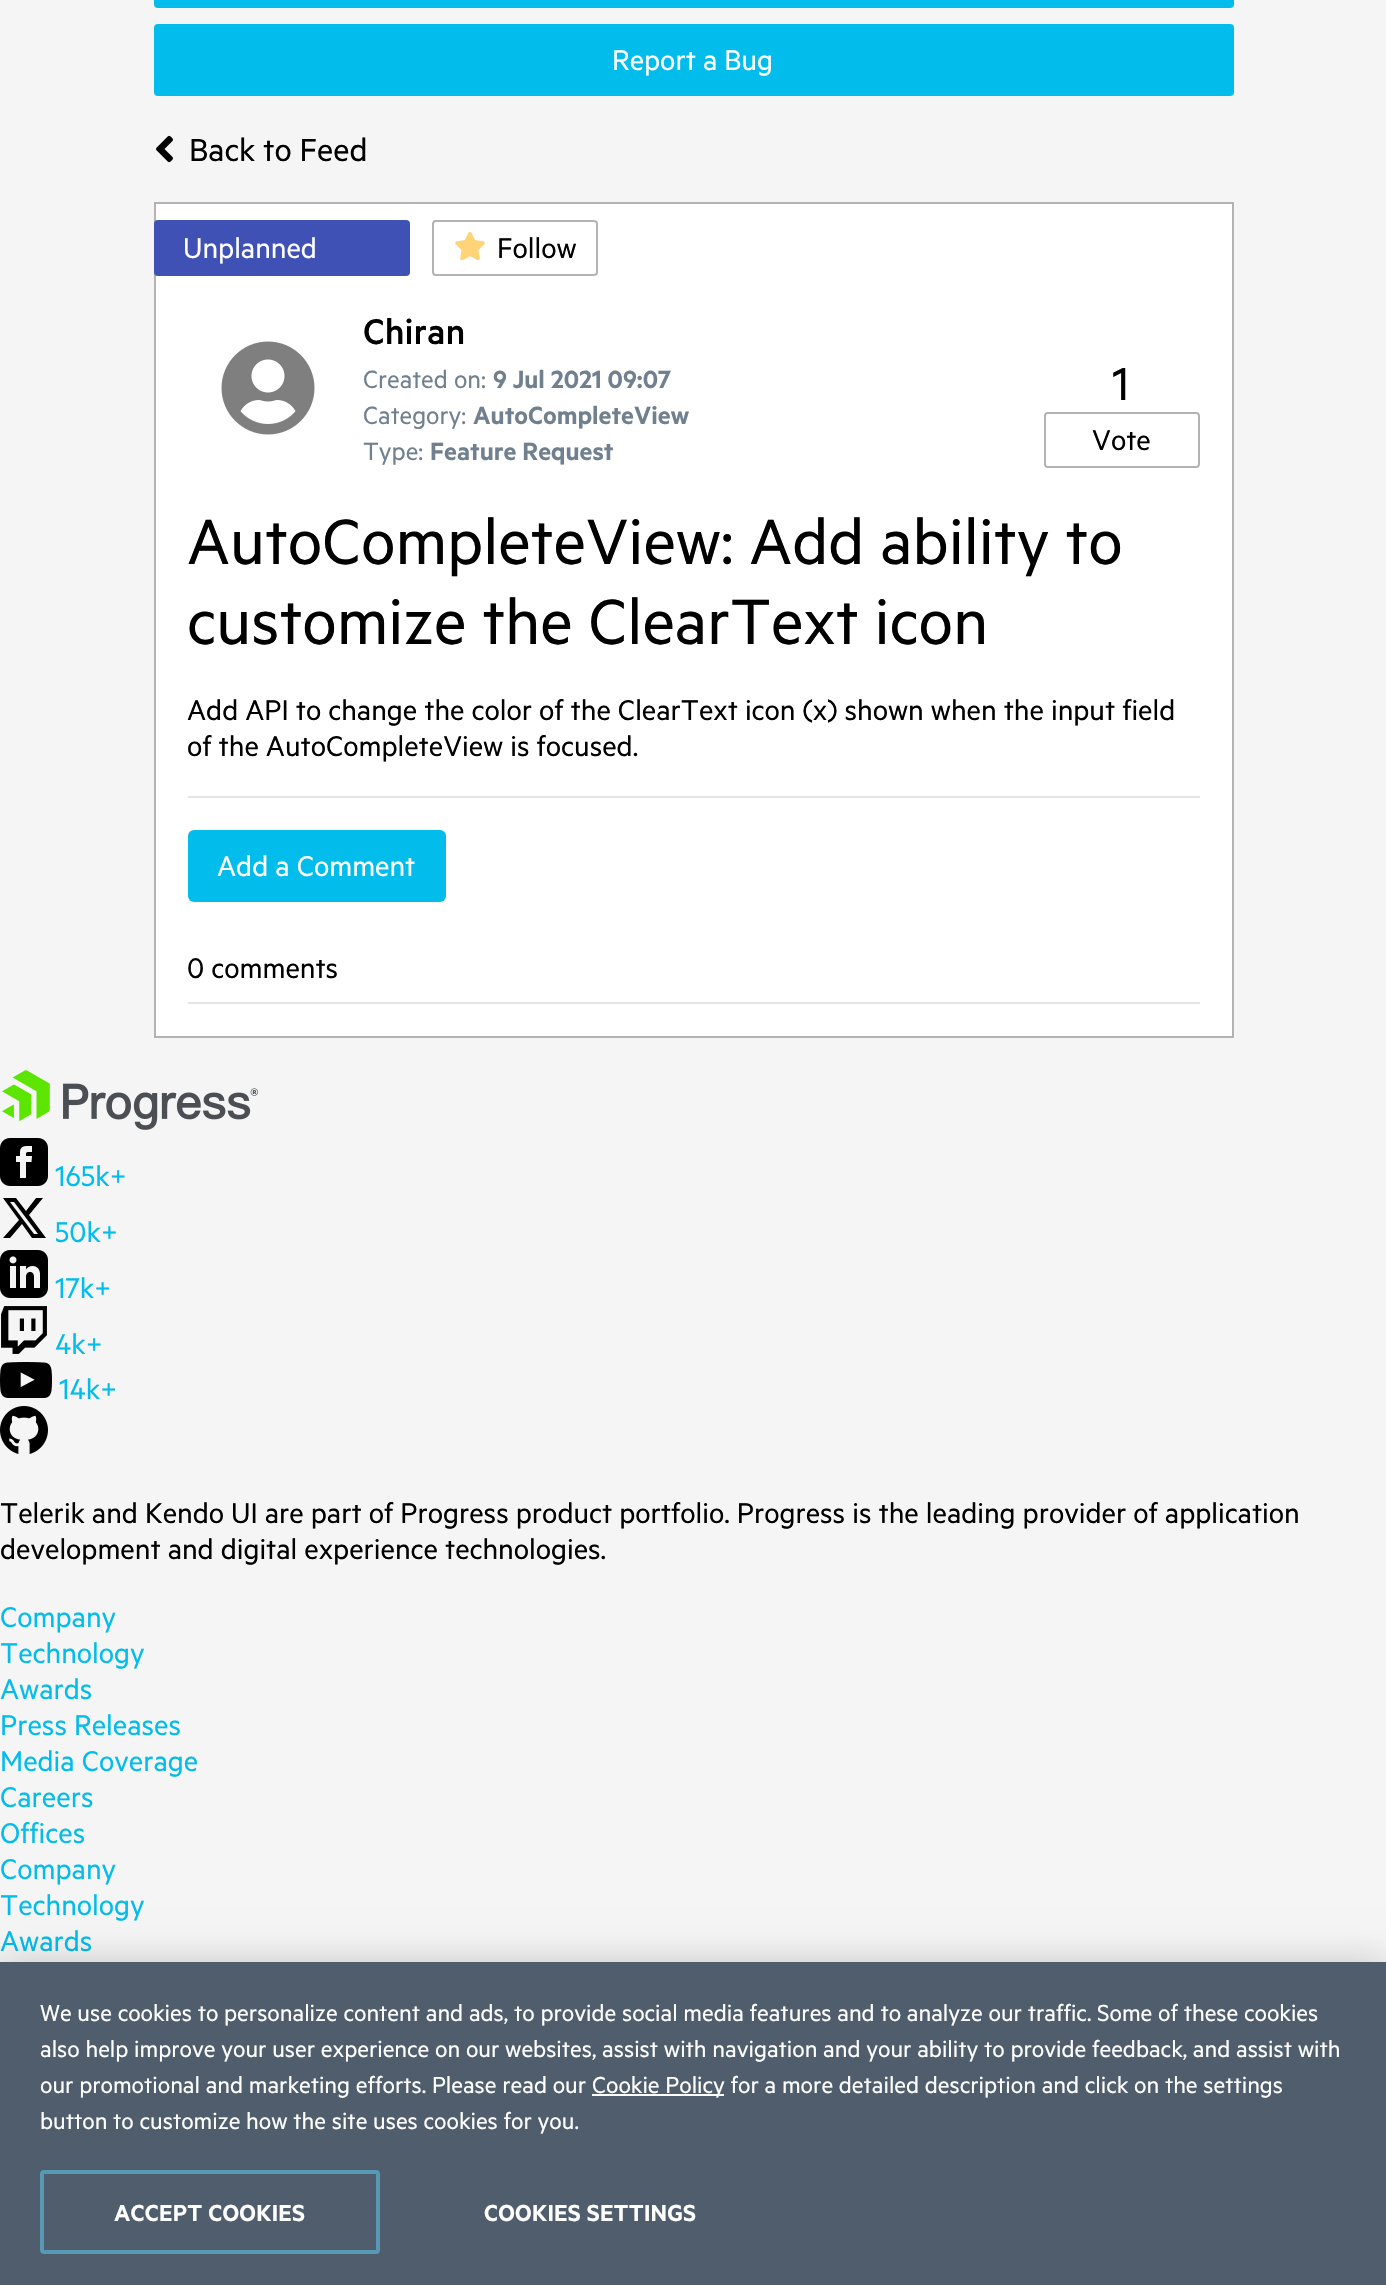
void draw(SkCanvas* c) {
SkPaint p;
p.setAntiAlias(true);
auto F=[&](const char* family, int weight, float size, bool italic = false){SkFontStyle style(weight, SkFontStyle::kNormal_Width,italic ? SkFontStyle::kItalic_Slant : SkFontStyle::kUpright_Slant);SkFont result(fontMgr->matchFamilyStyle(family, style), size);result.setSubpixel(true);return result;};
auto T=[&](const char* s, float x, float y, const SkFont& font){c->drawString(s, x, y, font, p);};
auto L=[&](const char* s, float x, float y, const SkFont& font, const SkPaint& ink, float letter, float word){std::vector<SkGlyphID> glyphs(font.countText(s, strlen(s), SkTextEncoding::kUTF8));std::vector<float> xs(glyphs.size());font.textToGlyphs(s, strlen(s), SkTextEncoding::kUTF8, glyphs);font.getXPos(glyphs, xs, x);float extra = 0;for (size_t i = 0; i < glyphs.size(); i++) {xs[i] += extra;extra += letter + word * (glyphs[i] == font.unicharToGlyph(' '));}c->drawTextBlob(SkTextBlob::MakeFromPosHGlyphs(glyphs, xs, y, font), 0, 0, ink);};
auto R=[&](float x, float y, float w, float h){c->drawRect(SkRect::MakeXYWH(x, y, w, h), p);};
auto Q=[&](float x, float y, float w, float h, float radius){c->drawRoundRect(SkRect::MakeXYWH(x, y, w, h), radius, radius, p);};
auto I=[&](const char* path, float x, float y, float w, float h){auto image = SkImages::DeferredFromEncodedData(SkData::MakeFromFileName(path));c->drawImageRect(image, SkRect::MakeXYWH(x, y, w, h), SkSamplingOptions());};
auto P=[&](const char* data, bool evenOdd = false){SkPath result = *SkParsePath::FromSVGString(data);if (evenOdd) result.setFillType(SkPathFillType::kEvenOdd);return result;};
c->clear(0xfff5f5f5);
p.setColor(0xff02bceb);
Q(154,-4,1080,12,4);
Q(154,24,1080,72,4);
auto f1 = F("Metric",400,32);
p.setColor(0xffffffff);
T("Report a Bug",612,70,f1);
I("1.png",156,135,17,28);
auto f2 = F("Metric",400,36);
p.setColor(0xff000000);
T("Back to Feed",189,161,f2);
p.setColor(0xffffffff);
c->drawRect(SkRect::MakeXYWH(155,203,1078,834),p);
p.setStroke(true);
p.setStrokeWidth(2);
p.setColor(0xffb3b3b3);
c->drawRect(SkRect::MakeXYWH(155,203,1078,834),p);
p.setStroke(false);
p.setColor(0xff3f51b5);
Q(154,220,256,56,4);
p.setColor(0xffffffff);
T("Unplanned",183,258,f1);
p.setStroke(true);
p.setColor(0xffb3b3b3);
c->drawRoundRect(SkRect::MakeXYWH(433,221,164,54),3,3,p);
I("2.png",455,231,30,30);
p.setStroke(false);
p.setColor(0xff000000);
T("Follow",497,258,f1);
I("3.png",221,341,94,94);
auto f3 = F("Metric",500,40);
T("Chiran",363,344,f3);
auto f4 = F("Metric",400,28);
p.setColor(0xff71808f);
T("Created on:",363,388,f4);
auto f5 = F("Metric",600,28);
T("9 Jul 2021 09:07",493,388,f5);
T("Category:",363,424,f4);
T("AutoCompleteView",473,424,f5);
T("Type:",363,460,f4);
T("Feature Request",430,460,f5);
auto f6 = F("Metric",400,52);
p.setColor(0xff000000);
T("1",1112,400,f6);
p.setStroke(true);
p.setColor(0xffb3b3b3);
c->drawRoundRect(SkRect::MakeXYWH(1045,413,154,54),3,3,p);
p.setStroke(false);
p.setColor(0xff000000);
T("Vote",1092,450,f1);
auto f7 = F("Metric",400,72);
T("AutoCompleteView: Add ability to",187,564,f7);
T("customize the ClearText icon",187,644,f7);
p.setColor(0xffe6e6e6);
R(188,796,1012,2);
p.setColor(0xff000000);
T("Add API to change the color of the ClearText icon (x) shown when the input field",187,720,f1);
T("of the AutoCompleteView is focused.",187,756,f1);
p.setColor(0xff02bceb);
Q(188,830,258,72,6);
p.setColor(0xffffffff);
T("Add a Comment",217,876,f1);
p.setColor(0xffe6e6e6);
R(188,1002,1012,2);
p.setColor(0xff000000);
T("0 comments",187,978,f1);
I("4.png",2,1070,256,60);
I("5.png",0,1138,48,48);
p.setColor(0xff02bceb);
T("165k+",55,1186,f1);
T("50k+",55,1242,f1);
p.setColor(0xff000000);
c->drawPath(P("M36 1198h7l-14 17l17 23h-14l-10-14l-12 14h-7l16-18l-16-22h13l10 13zm-2 36h4l-24-32h-4z"),p);
I("6.png",0,1250,48,48);
p.setColor(0xff02bceb);
T("17k+",55,1298,f1);
I("7.png",1,1306,46,48);
T("4k+",55,1354,f1);
I("8.png",0,1362,52,36);
T("14k+",59,1399,f1);
I("9.png",0,1406,48,48);
p.setColor(0xff000000);
T("Telerik and Kendo UI are part of Progress product portfolio. Progress is the leading provider of application",0,1523,f1);
T("development and digital experience technologies.",0,1559,f1);
p.setColor(0xff02bceb);
T("Company",0,1627,f1);
T("Technology",0,1663,f1);
T("Awards",0,1699,f1);
T("Press Releases",0,1735,f1);
T("Media Coverage",0,1771,f1);
T("Careers",0,1807,f1);
T("Offices",0,1843,f1);
T("Company",0,1879,f1);
T("Technology",0,1915,f1);
T("Awards",0,1951,f1);
p.setColor(0x33000000);
p.setMaskFilter(SkMaskFilter::MakeBlur(kNormal_SkBlurStyle, 18));
c->drawRect(SkRect::MakeXYWH(0,1962,1386,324),p);
p.setMaskFilter(nullptr);
p.setColor(0xff4f5d6c);
R(0,1962,1386,323);
auto f8 = F("Metric",400,26);
p.setColor(0xffffffff);
T("We use cookies to personalize content and ads, to provide social media features and to analyze our traffic. Some of these cookies",40,2021,f8);
T("also help improve your user experience on our websites, assist with navigation and your ability to provide feedback, and assist with",40,2057,f8);
T("our promotional and marketing efforts. Please read our",40,2093,f8);
R(592,2094,132,2);
T("Cookie Policy for a more detailed description and click on the settings",592,2093,f8);
T("button to customize how the site uses cookies for you.",40,2129,f8);
p.setStroke(true);
p.setStrokeWidth(4);
p.setColor(0xff5699b6);
c->drawRoundRect(SkRect::MakeXYWH(42,2172,336,80),2,2,p);
auto f9 = F("Metric",600,26);
p.setStroke(false);
p.setColor(0xffffffff);
L("ACCEPT COOKIES",114,2221,f9,p,.25,0);
L("COOKIES SETTINGS",484,2221,f9,p,.25,0);
}
